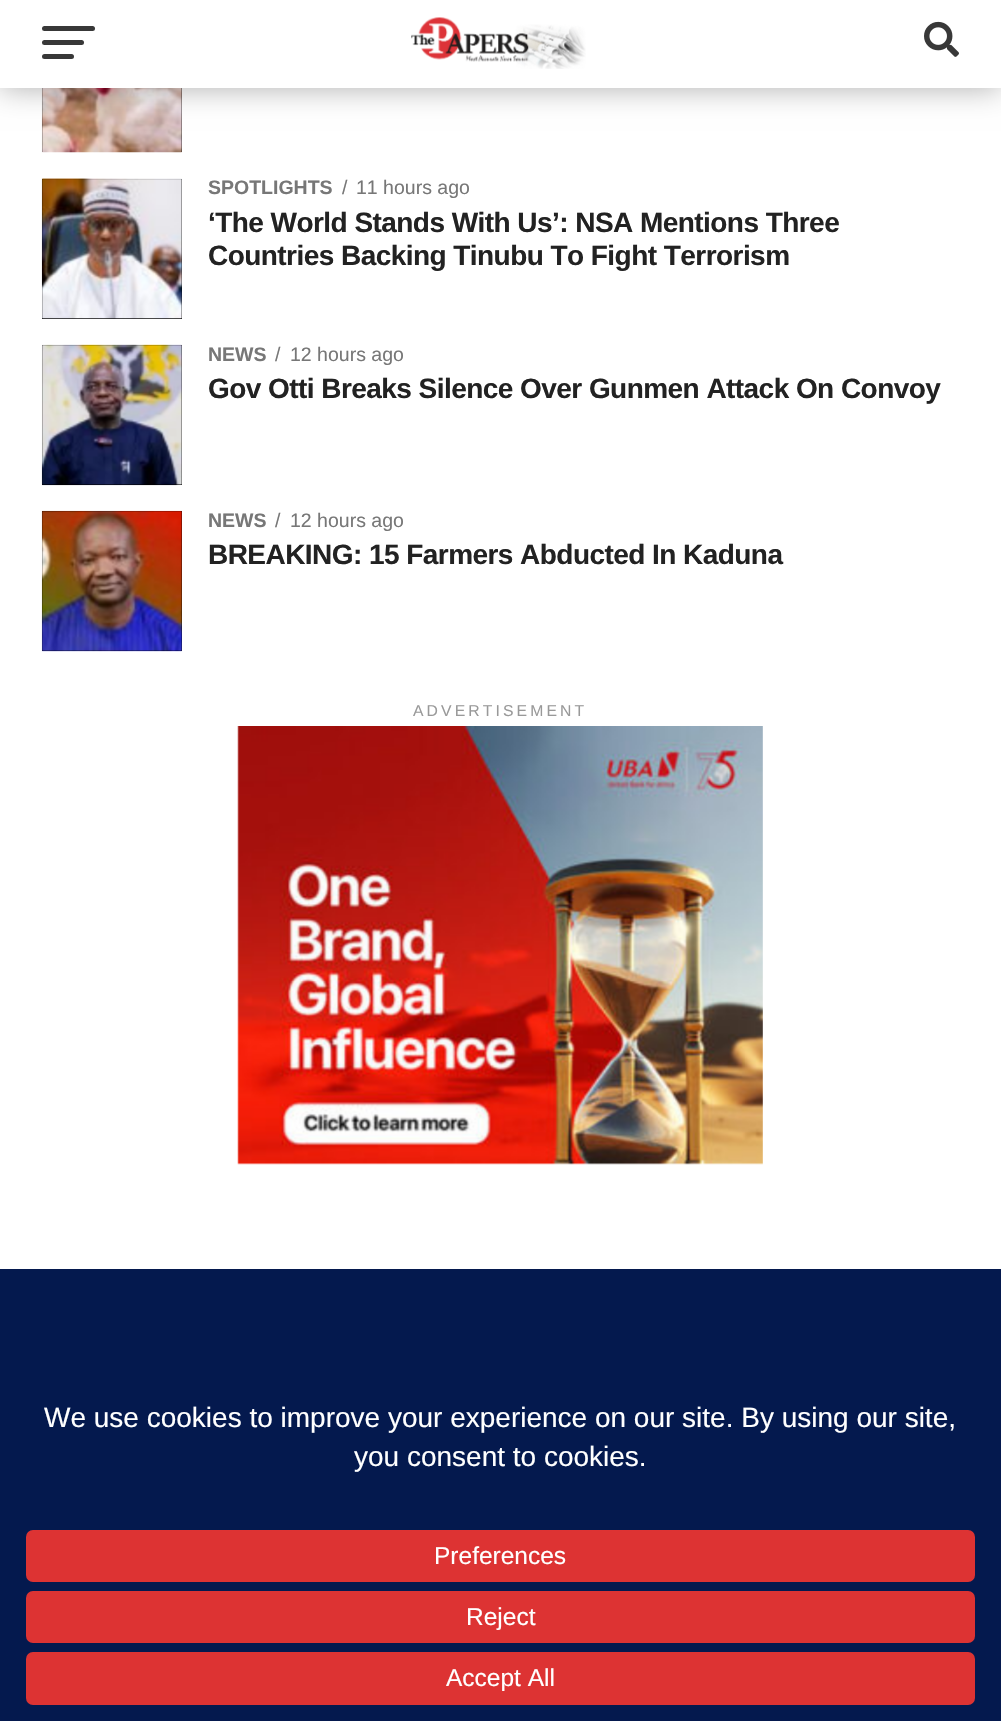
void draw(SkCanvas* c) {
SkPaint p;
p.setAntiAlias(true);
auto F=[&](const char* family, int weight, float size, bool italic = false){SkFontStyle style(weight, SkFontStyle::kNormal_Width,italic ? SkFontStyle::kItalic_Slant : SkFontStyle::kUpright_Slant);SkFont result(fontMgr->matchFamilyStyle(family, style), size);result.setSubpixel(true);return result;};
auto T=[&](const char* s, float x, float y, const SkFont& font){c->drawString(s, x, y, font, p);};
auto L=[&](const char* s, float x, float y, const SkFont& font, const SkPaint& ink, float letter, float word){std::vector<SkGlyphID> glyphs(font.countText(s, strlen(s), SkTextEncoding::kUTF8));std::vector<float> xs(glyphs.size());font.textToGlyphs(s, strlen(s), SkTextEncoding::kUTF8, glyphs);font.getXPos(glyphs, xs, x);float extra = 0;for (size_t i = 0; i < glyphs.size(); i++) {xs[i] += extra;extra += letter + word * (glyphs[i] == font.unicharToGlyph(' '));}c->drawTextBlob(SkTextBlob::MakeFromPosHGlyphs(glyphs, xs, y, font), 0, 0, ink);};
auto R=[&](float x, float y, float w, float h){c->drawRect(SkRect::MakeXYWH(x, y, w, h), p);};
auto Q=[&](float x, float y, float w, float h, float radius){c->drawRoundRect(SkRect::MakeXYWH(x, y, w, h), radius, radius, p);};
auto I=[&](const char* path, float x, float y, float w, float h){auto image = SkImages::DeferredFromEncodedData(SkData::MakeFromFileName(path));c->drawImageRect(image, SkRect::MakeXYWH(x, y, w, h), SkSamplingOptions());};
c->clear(0xffffffff);
p.setColor(0xff000000);
R(42,88,140,64);
I("3.png",41,88,141,65);
p.setColor(0x4d000000);
p.setMaskFilter(SkMaskFilter::MakeBlur(kNormal_SkBlurStyle, 14));
c->drawRect(SkRect::MakeXYWH(0,2,1001,87),p);
p.setMaskFilter(nullptr);
p.setColor(0xffffffff);
R(0,0,1001,88);
p.setColor(0xff383838);
Q(42,26,53,5,2.5);
Q(42,40,42,5,2.5);
Q(42,54,32,5,2.5);
I("1.png",411,17,175,52);
I("2.png",924,21,35,36);
p.setColor(0xff000000);
R(42,179,140,140);
I("4.png",41,178,141,141);
auto f1 = F("Liberation Sans",700,19.5);
p.setColor(0xff777777);
T("SPOTLIGHTS",208,194,f1);
auto f2 = F("Liberation Sans",400,19.5);
T("/",342,194,f2);
T("11 hours ago",356,194,f2);
auto f3 = F("Liberation Sans",700,28);
p.setColor(0xff222222);
L("‘The World Stands With Us’: NSA Mentions Three",208,232,f3,p,-.55,0);
L("Countries Backing Tinubu To Fight Terrorism",208,265,f3,p,-.55,0);
p.setColor(0xff000000);
R(42,345,140,140);
I("5.png",41,344,141,142);
p.setColor(0xff777777);
T("NEWS",208,361,f1);
T("/",275,361,f2);
T("12 hours ago",290,361,f2);
p.setColor(0xff222222);
L("Gov Otti Breaks Silence Over Gunmen Attack On Convoy",208,398,f3,p,-.55,0);
p.setColor(0xff000000);
R(42,511,140,140);
I("6.png",41,510,141,142);
p.setColor(0xff777777);
T("NEWS",208,527,f1);
T("/",275,527,f2);
T("12 hours ago",290,527,f2);
p.setColor(0xff222222);
L("BREAKING: 15 Farmers Abducted In Kaduna",208,564,f3,p,-.55,0);
auto f4 = F("Liberation Sans",400,15.75);
p.setColor(0xff999999);
L("ADVERTISEMENT",413,716,f4,p,3.1,0);
I("7.png",237,726,526,439);
p.setColor(0xff04194e);
R(0,1269,1001,452);
auto f5 = F("Liberation Sans",400,28);
p.setColor(0xffffffff);
T("We use cookies to improve your experience on our site. By using our site,",44,1427,f5);
T("you consent to cookies.",354,1466,f5);
p.setColor(0xffdd3333);
Q(26,1530,949,52,7);
auto f6 = F("Liberation Sans",400,24.5);
p.setColor(0xffffffff);
T("Preferences",434,1564,f6);
p.setColor(0xffdd3333);
Q(26,1591,949,52,7);
p.setColor(0xffffffff);
T("Reject",466,1625,f6);
p.setColor(0xffdd3333);
Q(26,1652,949,53,7);
p.setColor(0xffffffff);
T("Accept All",446,1686,f6);
}
